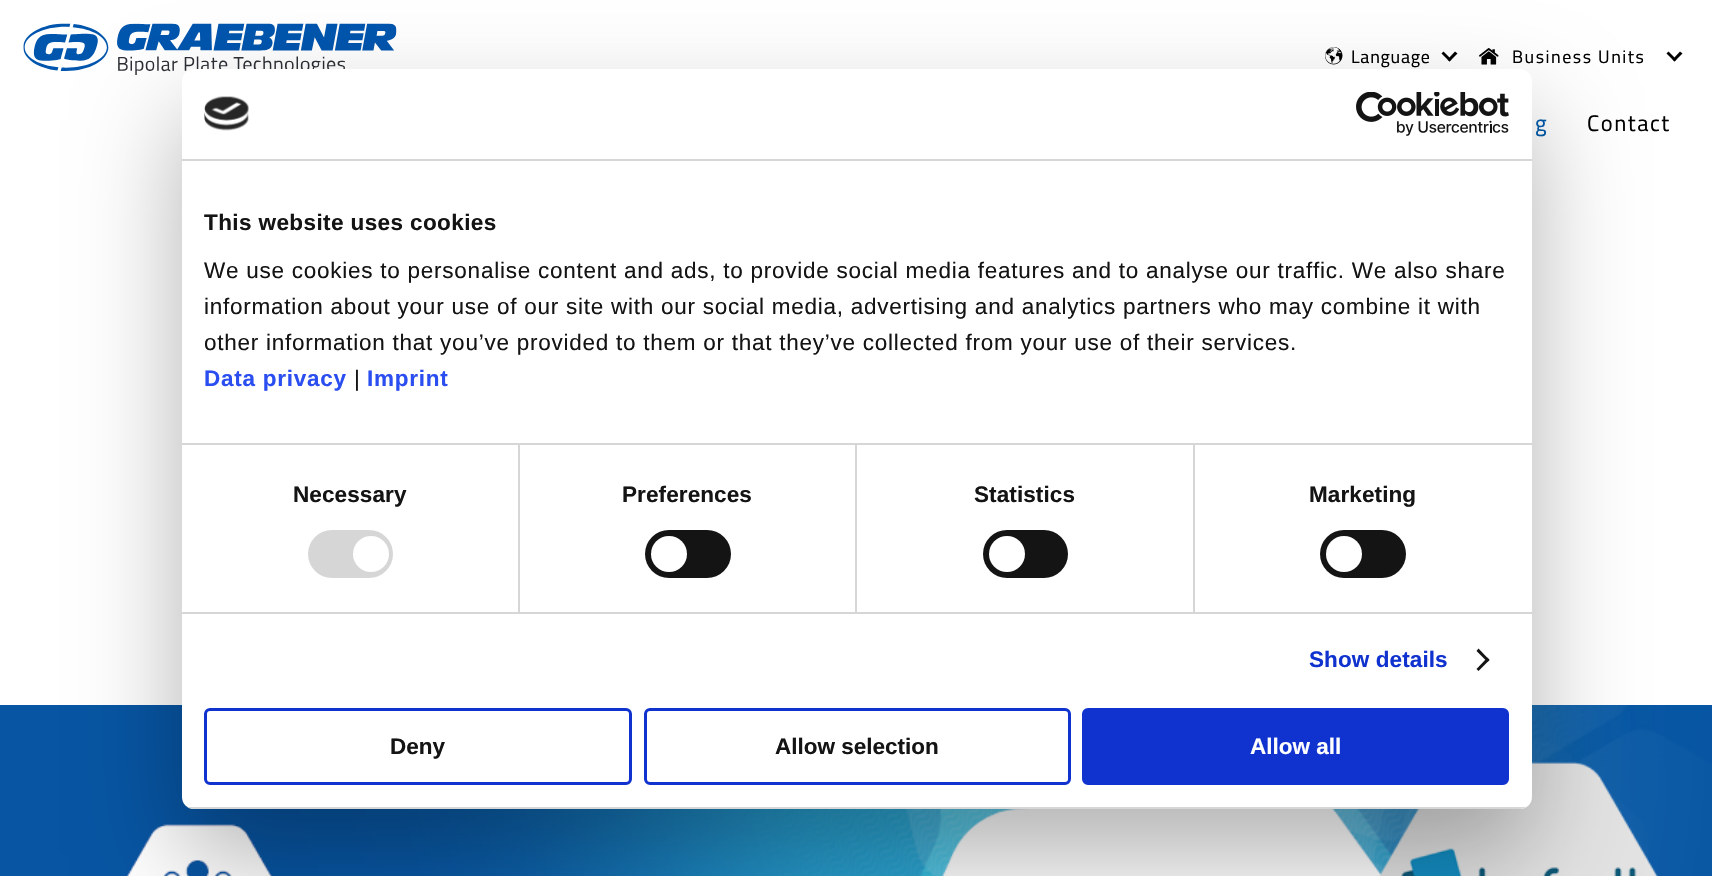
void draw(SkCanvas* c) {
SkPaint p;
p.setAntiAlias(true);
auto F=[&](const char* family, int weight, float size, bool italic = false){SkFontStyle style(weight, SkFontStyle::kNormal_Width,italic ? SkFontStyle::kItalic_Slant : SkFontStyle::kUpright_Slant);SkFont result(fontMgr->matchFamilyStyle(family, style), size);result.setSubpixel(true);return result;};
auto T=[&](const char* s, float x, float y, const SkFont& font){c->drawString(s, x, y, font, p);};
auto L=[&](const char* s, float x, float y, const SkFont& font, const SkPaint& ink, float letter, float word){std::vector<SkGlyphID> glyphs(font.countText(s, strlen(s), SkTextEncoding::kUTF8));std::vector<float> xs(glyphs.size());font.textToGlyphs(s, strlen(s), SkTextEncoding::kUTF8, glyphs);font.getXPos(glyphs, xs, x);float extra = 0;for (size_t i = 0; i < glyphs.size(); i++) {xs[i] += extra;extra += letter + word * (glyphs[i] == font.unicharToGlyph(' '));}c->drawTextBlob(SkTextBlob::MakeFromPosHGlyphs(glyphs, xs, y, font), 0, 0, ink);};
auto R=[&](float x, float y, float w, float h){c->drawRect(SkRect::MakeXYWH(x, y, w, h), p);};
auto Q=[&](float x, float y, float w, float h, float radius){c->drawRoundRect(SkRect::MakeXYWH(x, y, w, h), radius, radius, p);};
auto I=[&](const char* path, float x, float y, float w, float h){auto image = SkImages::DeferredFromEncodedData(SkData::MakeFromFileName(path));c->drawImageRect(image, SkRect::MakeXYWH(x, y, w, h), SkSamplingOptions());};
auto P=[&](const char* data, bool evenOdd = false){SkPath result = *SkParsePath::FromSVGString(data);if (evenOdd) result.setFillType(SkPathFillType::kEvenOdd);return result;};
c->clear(0xffffffff);
I("1.png",23,23,374,52);
I("2.png",1325,47,18,18);
auto f1 = F("Cairo",400,18);
p.setColor(0xff000000);
L("Language",1351,63,f1,p,.75,0);
c->drawPath(P("M1457.5 53.5l-8 8l-2-2l7.5-8z"),p);
c->drawPath(P("M1451.5 59.5l-2 2l-8-8l2-2z"),p);
I("3.png",1479,48,20,17);
L("Business Units",1512,63,f1,p,1.5,0);
c->drawPath(P("M1682.5 53.5l-8 8l-2-2l7.5-8z"),p);
c->drawPath(P("M1676.5 59.5l-2 2l-8-8l2-2z"),p);
auto f2 = F("Cairo",400,22.5);
p.setColor(0xff005aab);
L("g",1535,131,f2,p,1.5,0);
p.setColor(0xff000000);
L("Contact",1587,131,f2,p,1.5,0);
I("4.png",0,705,1712,171);
p.setColor(0x4d000000);
p.setMaskFilter(SkMaskFilter::MakeBlur(kNormal_SkBlurStyle, 51));
c->drawRoundRect(SkRect::MakeXYWH(182,117,1350,740),12,12,p);
p.setMaskFilter(nullptr);
p.setColor(0xffffffff);
Q(182,69,1350,740,12);
p.setColor(0xffd6d6d6);
R(182,159,1350,2);
I("5.png",204,96,45,35);
I("6.png",1356,92,153,44);
R(518,444,2,168);
R(855,444,2,168);
R(1193,444,2,168);
R(182,443,1350,2);
auto f3 = F("Liberation Sans",700,22.5);
p.setColor(0xff141414);
L("This website uses cookies",204,230,f3,p,.4,0);
auto f4 = F("Liberation Sans",400,22.5);
L("We use cookies to personalise content and ads, to provide social media features and to analyse our traffic. We also share",204,278,f4,p,.75,0);
L("information about your use of our site with our social media, advertising and analytics partners who may combine it with",204,314,f4,p,.75,0);
L("other information that you’ve provided to them or that they’ve collected from your use of their services.",204,350,f4,p,.75,0);
p.setColor(0xff2a4eef);
L("Data privacy",204,386,f3,p,.75,0);
p.setColor(0xff141414);
L("|",354,386,f4,p,.75,0);
p.setColor(0xff2a4eef);
L("Imprint",367,386,f3,p,.75,0);
p.setColor(0xffd6d6d6);
R(182,612,1350,2);
p.setColor(0xff141414);
L("Necessary",293,502,f3,p,.1,0);
p.setColor(0xffd6d6d6);
Q(308,530,85,48,24);
p.setColor(0xffffffff);
c->drawCircle(371,554,18,p);
p.setColor(0xff141414);
L("Preferences",622,502,f3,p,.1,0);
Q(645,530,86,48,24);
p.setColor(0xffffffff);
c->drawCircle(669,554,18,p);
p.setColor(0xff141414);
L("Statistics",974,502,f3,p,.1,0);
Q(983,530,85,48,24);
p.setColor(0xffffffff);
c->drawCircle(1007,554,18,p);
p.setColor(0xff141414);
L("Marketing",1309,502,f3,p,.1,0);
Q(1320,530,86,48,24);
p.setColor(0xffffffff);
c->drawCircle(1344,554,18,p);
p.setColor(0xff1032cf);
L("Show details",1309,667,f3,p,.1,0);
p.setColor(0xff141414);
c->drawPath(P("M1478.5 648.5l11 11.5l-2 2l-11-11z"),p);
c->drawPath(P("M1487.5 657.5l2 2.5l-11 11l-2-2z"),p);
c->save();
c->clipPath(P("M194 69h1326c6.5 0 12 5.5 12 12v716c0 6.5-5.5 12-12 12h-1326c-6.5 0-12-5.5-12-12v-716c0-6.5 5.5-12 12-12z"),true);
p.setColor(0xffd6d6d6);
R(182,807,1350,2);
c->restore();
p.setStroke(true);
p.setStrokeWidth(3);
p.setColor(0xff1032cf);
c->drawRoundRect(SkRect::MakeXYWH(205.5,709.5,425,74),4.5,4.5,p);
p.setStroke(false);
p.setColor(0xff141414);
T("Deny",390,754,f3);
p.setStroke(true);
p.setColor(0xff1032cf);
c->drawRoundRect(SkRect::MakeXYWH(645.5,709.5,424,74),4.5,4.5,p);
p.setStroke(false);
p.setColor(0xff141414);
T("Allow selection",775,754,f3);
p.setColor(0xff1032cf);
c->drawRoundRect(SkRect::MakeXYWH(1083.5,709.5,424,74),4.5,4.5,p);
p.setStroke(true);
c->drawRoundRect(SkRect::MakeXYWH(1083.5,709.5,424,74),4.5,4.5,p);
p.setStroke(false);
p.setColor(0xffffffff);
T("Allow all",1250,754,f3);
}
